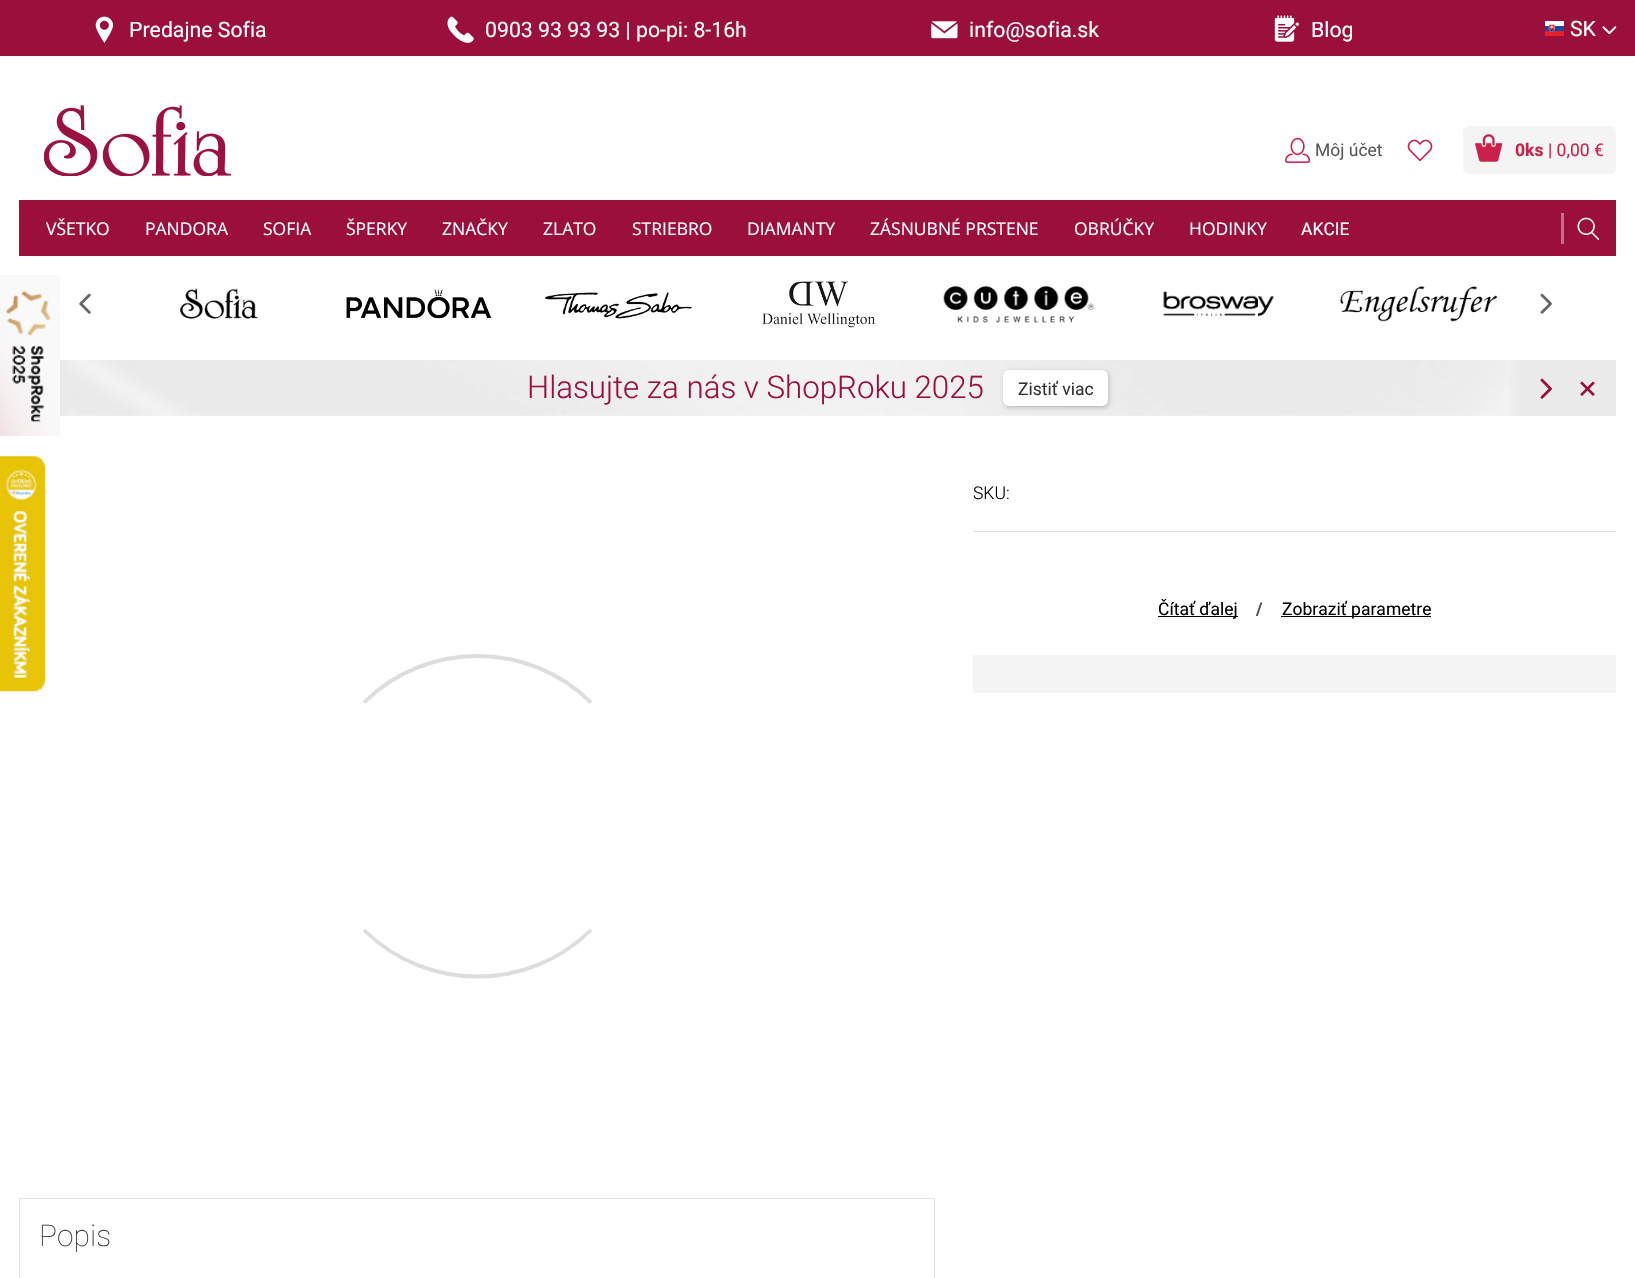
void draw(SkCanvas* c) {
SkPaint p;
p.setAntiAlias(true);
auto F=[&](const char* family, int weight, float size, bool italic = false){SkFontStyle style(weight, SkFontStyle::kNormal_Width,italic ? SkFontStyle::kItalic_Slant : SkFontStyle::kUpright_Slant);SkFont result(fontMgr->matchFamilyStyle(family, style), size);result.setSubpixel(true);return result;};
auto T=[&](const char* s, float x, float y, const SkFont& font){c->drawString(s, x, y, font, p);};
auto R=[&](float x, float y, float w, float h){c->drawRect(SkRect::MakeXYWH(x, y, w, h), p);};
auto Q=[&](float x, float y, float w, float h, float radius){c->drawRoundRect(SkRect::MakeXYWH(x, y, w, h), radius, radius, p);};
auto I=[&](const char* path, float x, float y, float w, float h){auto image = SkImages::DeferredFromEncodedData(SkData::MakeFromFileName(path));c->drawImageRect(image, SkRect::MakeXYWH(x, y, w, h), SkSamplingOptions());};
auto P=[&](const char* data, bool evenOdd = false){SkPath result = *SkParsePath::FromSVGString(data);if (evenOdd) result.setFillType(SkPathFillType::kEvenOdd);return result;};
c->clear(0xffffffff);
I("1.png",0,456,45,236);
p.setColor(0xff9b0f3c);
R(0,0,1635,56);
I("2.png",95,16,19,27);
auto f1 = F("Roboto",400,21.25);
p.setColor(0xffffffff);
T("Predajne Sofia",129,37,f1);
I("3.png",447,16,27,27);
T("0903 93 93 93 | po-pi: 8-16h",485,37,f1);
I("4.png",931,21,27,18);
T("info@sofia.sk",969,37,f1);
I("5.png",1274,15,25,27);
T("Blog",1311,37,f1);
I("6.png",1545,21,19,15);
T("SK",1570,36,f1);
I("7.png",1602,26,15,9);
I("8.png",1285,137,26,26);
auto f2 = F("Roboto",400,17.5);
p.setColor(0xff595959);
T("Môj účet",1315,156,f2);
I("9.png",1407,139,26,23);
p.setColor(0xfff4f4f4);
Q(1463,126,153,48,6);
I("10.png",1475,134,28,28);
auto f3 = F("Roboto",700,17.5);
p.setColor(0xffca214a);
T("0ks",1515,156,f3);
T("| 0,00 €",1548,156,f2);
p.setColor(0xff9b0f3c);
R(19,200,1597,56);
I("11.png",44,105,187,71);
auto f4 = F("Open Sans",400,17.5);
p.setColor(0xffffffff);
T("VŠETKO",46,235,f4);
T("PANDORA",145,235,f4);
T("SOFIA",263,235,f4);
T("ŠPERKY",346,235,f4);
T("ZNAČKY",442,235,f4);
T("ZLATO",543,235,f4);
T("STRIEBRO",632,235,f4);
T("DIAMANTY",747,235,f4);
T("ZÁSNUBNÉ PRSTENE",870,235,f4);
T("OBRÚČKY",1074,235,f4);
T("HODINKY",1189,235,f4);
T("AKCIE",1301,235,f2);
p.setColor(0xffc36f8a);
R(1561,213,3,31);
I("12.png",1577,217,23,23);
I("13.png",0,275,60,161);
I("14.png",79,293,12,21);
I("15.png",180,288,78,31);
I("16.png",346,289,146,30);
I("17.png",545,292,147,27);
I("18.png",761,281,115,47);
I("19.png",943,286,151,37);
I("20.png",1163,291,111,26);
I("21.png",1340,286,158,36);
I("22.png",1540,293,12,21);
I("23.png",64,360,1457,56);
{
const SkColor colors[] = {0xffeaeaea,0x00eaeaea};
const float stops[] = {.8,1};
const SkPoint ends[] = {{19,388}, {75,388}};
p.setShader(SkGradientShader::MakeLinear(ends, colors, stops, 2, SkTileMode::kClamp));
p.setAlpha(255);
}
R(60,360,9,56);
auto f5 = F("Roboto",300,31.25);
p.setShader(nullptr);
p.setColor(0xff9b0f3c);
T("Hlasujte za nás v ShopRoku 2025",527,398,f5);
p.setColor(0x33000000);
p.setMaskFilter(SkMaskFilter::MakeBlur(kNormal_SkBlurStyle, 2));
c->drawRoundRect(SkRect::MakeXYWH(1004,371,105,37),6,6,p);
p.setMaskFilter(nullptr);
p.setColor(0xffffffff);
Q(1003,370,105,36,6);
p.setColor(0xff333333);
T("Zistiť viac",1018,395,f2);
{
const SkColor colors[] = {0xffeaeaea,0x00eaeaea};
const float stops[] = {.85,1};
const SkPoint ends[] = {{1616,388}, {1504,388}};
p.setShader(SkGradientShader::MakeLinear(ends, colors, stops, 2, SkTileMode::kClamp));
p.setAlpha(255);
}
R(1510,360,106,56);
I("24.png",1540,378,12,21);
I("25.png",1580,381,15,15);
auto f6 = F("Roboto",300,17.5);
p.setShader(nullptr);
p.setColor(0xff000000);
T("SKU:",973,499,f6);
p.setColor(0xffdddddd);
R(973,531,643,1);
p.setColor(0xff000000);
R(1158,616,80,1);
T("Čítať ďalej",1158,615,f2);
p.setColor(0xff505050);
T("/",1256,615,f3);
p.setColor(0xff000000);
R(1281,616,150,1);
T("Zobraziť parametre",1282,615,f2);
p.setColor(0xfff4f4f4);
R(973,655,643,38);
p.setStroke(true);
p.setStrokeWidth(3.8);
p.setColor(0xffdddddd);
c->drawPath(P("M364 702.5c62.5-62 164.5-62 227 0"),p);
c->drawPath(P("M591 930c-62.5 62-164.5 62-227 0"),p);
p.setStrokeWidth(1);
p.setColor(0xffe3e3e3);
c->drawRect(SkRect::MakeXYWH(19.5,1198.5,915,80),p);
auto f7 = F("Roboto",100,30);
p.setStroke(false);
p.setColor(0xff333333);
T("Popis",39,1246,f7);
}
